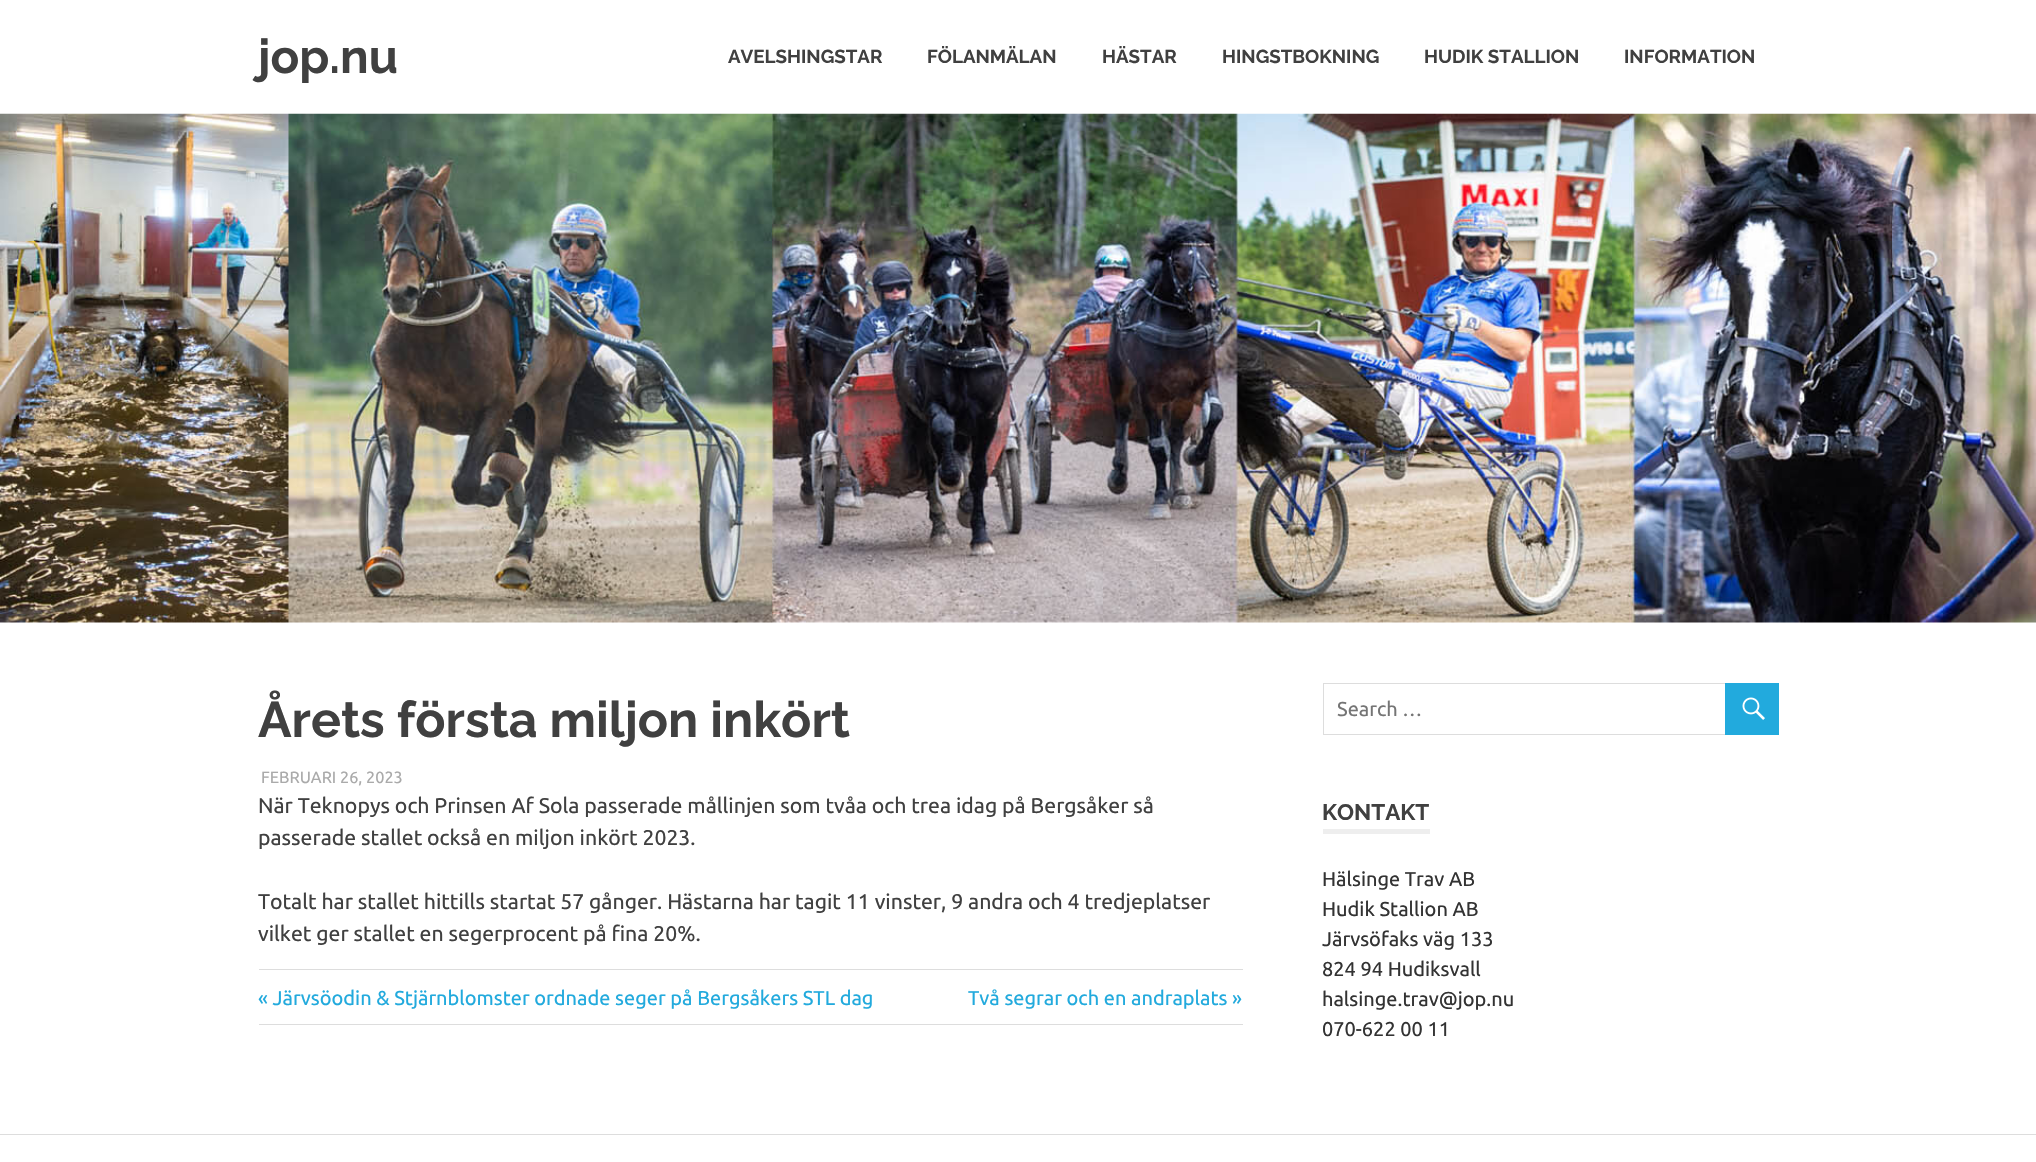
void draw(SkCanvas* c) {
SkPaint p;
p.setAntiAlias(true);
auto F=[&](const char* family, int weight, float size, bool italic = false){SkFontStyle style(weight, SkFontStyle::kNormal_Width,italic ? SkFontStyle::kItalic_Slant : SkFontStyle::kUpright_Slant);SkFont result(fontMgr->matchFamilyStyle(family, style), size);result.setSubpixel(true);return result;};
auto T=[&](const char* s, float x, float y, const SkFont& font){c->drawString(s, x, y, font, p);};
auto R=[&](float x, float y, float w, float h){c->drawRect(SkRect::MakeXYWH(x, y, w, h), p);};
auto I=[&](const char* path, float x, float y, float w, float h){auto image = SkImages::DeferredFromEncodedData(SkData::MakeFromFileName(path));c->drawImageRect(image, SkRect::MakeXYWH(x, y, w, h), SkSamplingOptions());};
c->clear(0xffffffff);
auto f1 = F("Raleway",700,47.5);
p.setColor(0xff404040);
T("jop.nu",258,73,f1);
auto f2 = F("Raleway",700,18.75);
T("AVELSHINGSTAR",728,63,f2);
T("FÖLANMÄLAN",927,63,f2);
T("HÄSTAR",1102,63,f2);
T("HINGSTBOKNING",1222,63,f2);
T("HUDIK STALLION",1424,63,f2);
T("INFORMATION",1624,63,f2);
I("1.png",0,113,2036,510);
auto f3 = F("Raleway",700,50);
T("Årets första miljon inkört",258,737,f3);
auto f4 = F("Ubuntu",400,16.25);
p.setColor(0xffaaaaaa);
T("FEBRUARI 26, 2023",261,783,f4);
auto f5 = F("Ubuntu",400,21.25);
p.setColor(0xff404040);
T("När Teknopys och Prinsen Af Sola passerade mållinjen som tvåa och trea idag på Bergsåker så",258,813,f5);
T("passerade stallet också en miljon inkört 2023.",258,845,f5);
T("Totalt har stallet hittills startat 57 gånger. Hästarna har tagit 11 vinster, 9 andra och 4 tredjeplatser",258,909,f5);
T("vilket ger stallet en segerprocent på fina 20%.",258,941,f5);
p.setColor(0xffdddddd);
R(259,969,984,1);
R(259,1024,984,1);
auto f6 = F("Ubuntu",400,20);
p.setColor(0xff22aadd);
T("« Järvsöodin & Stjärnblomster ordnade seger på Bergsåkers STL dag",258,1005,f6);
T("Två segrar och en andraplats »",968,1005,f6);
p.setStroke(true);
p.setStrokeWidth(1);
p.setColor(0xffdddddd);
c->drawRect(SkRect::MakeXYWH(1323.5,683.5,455,51),p);
p.setStroke(false);
p.setColor(0xff757575);
T("Search …",1337,716,f6);
p.setColor(0xff22aadd);
R(1725,683,54,52);
I("2.png",1742,697,23,23);
p.setColor(0xffeeeeee);
R(1323,829,107,5);
auto f7 = F("Raleway",700,22.5);
p.setColor(0xff404040);
T("KONTAKT",1322,820,f7);
p.setColor(0xff333333);
T("Hälsinge Trav AB",1322,886,f6);
T("Hudik Stallion AB",1322,916,f6);
T("Järvsöfaks väg 133",1322,946,f6);
T("824 94 Hudiksvall",1322,976,f6);
T("halsinge.trav@jop.nu",1322,1006,f6);
T("070-622 00 11",1322,1036,f6);
p.setColor(0xffdddddd);
R(0,1134,2036,1);
}
